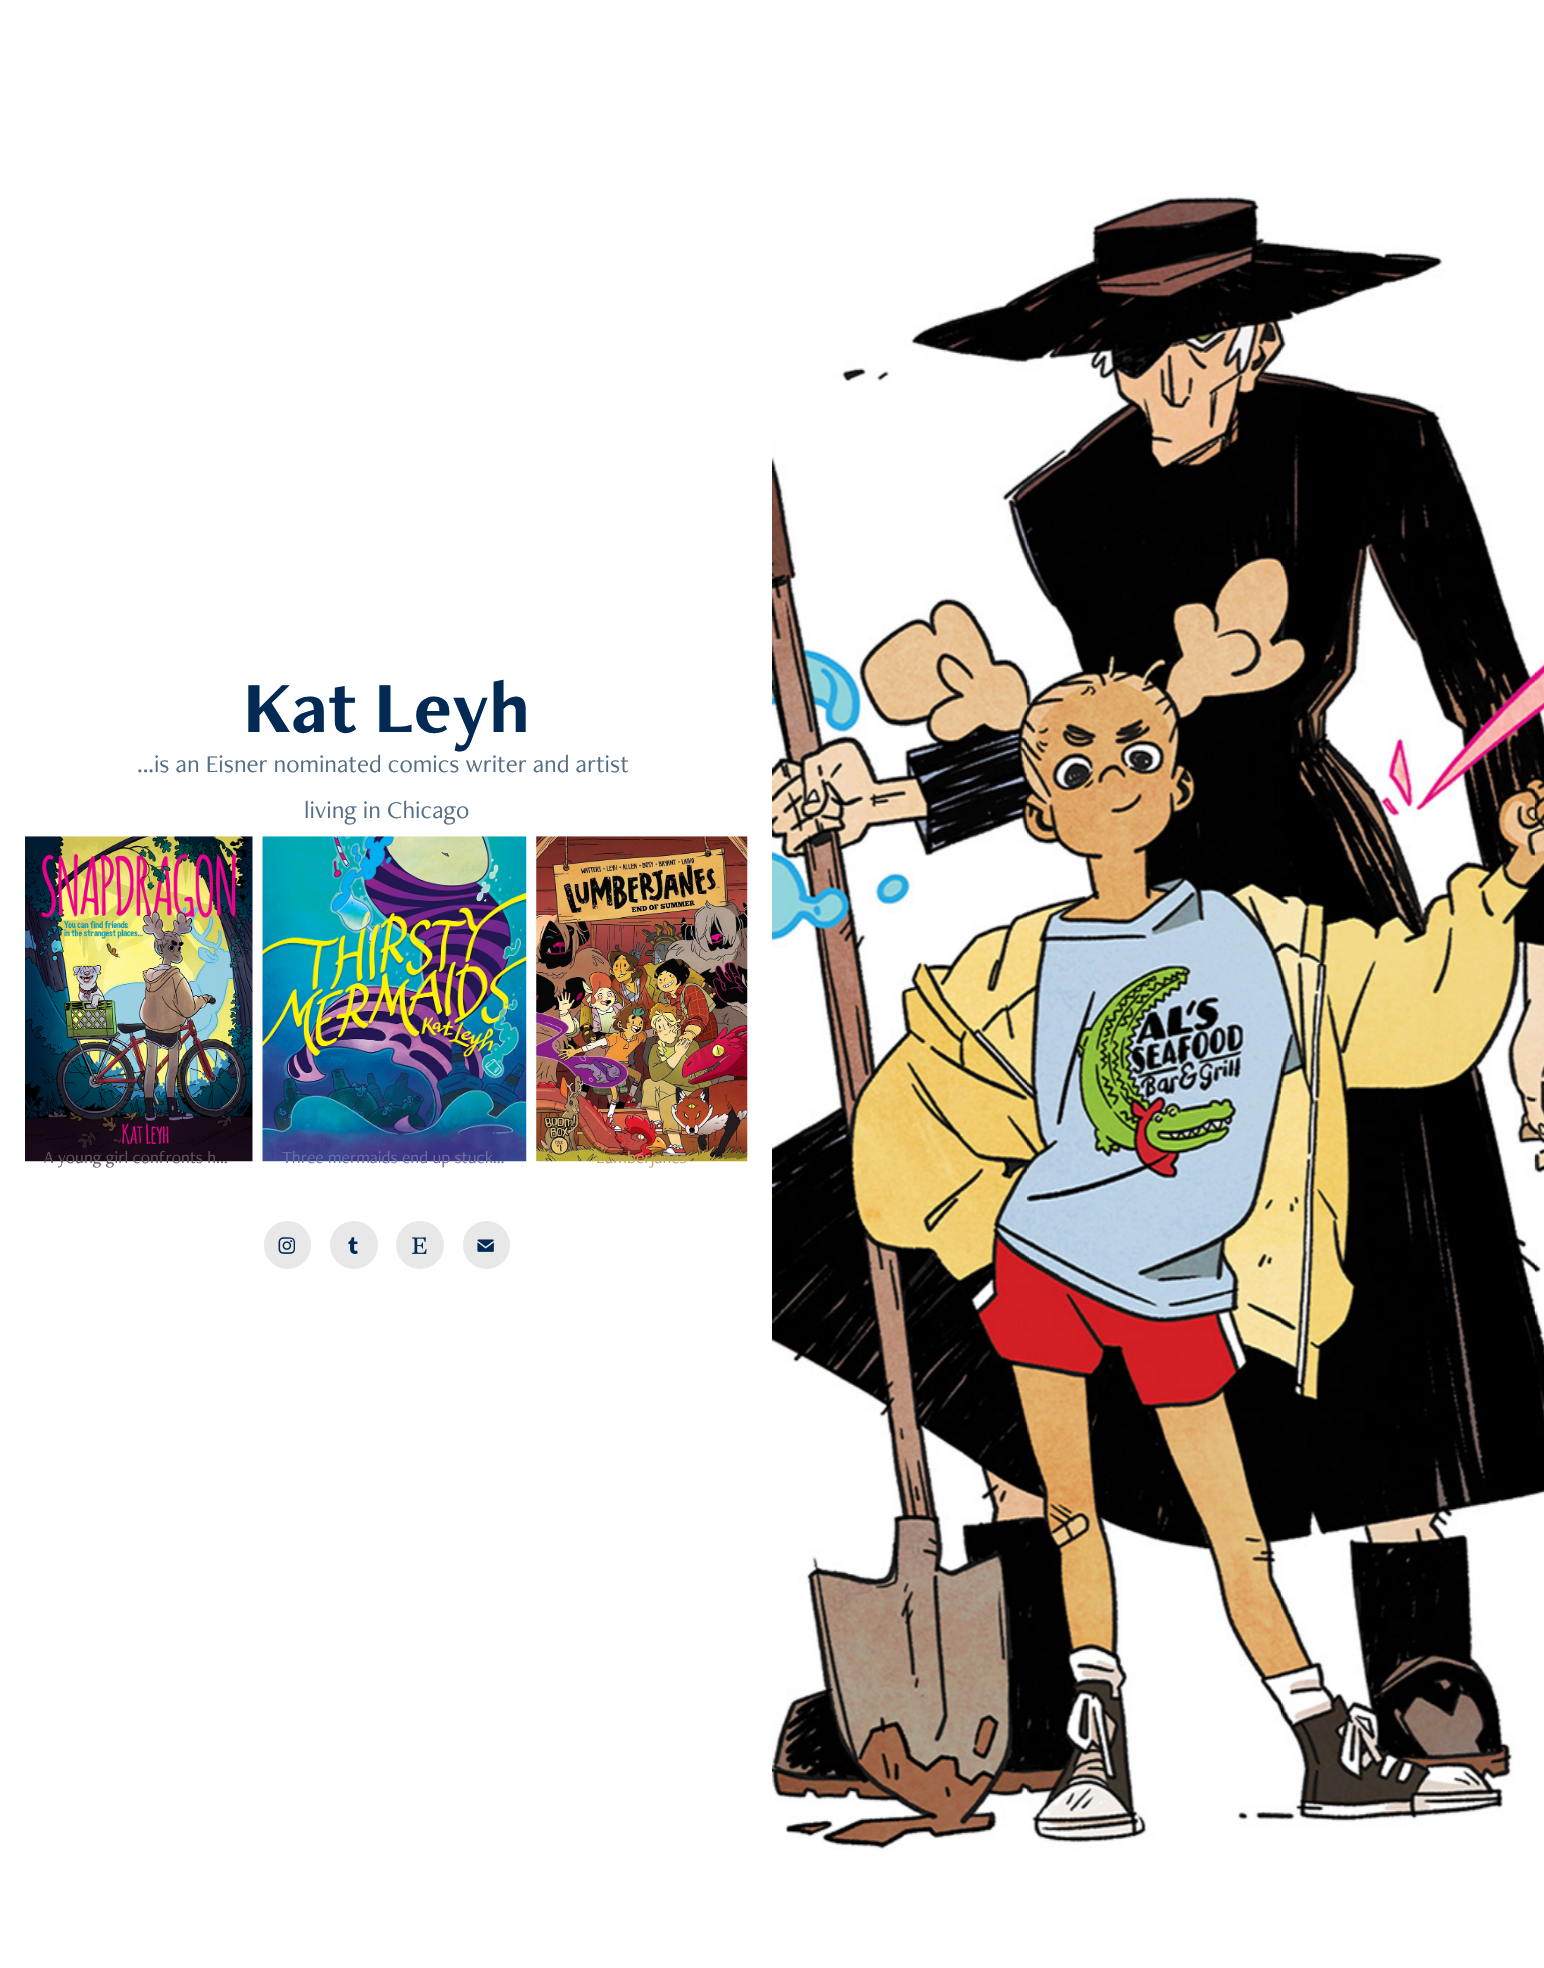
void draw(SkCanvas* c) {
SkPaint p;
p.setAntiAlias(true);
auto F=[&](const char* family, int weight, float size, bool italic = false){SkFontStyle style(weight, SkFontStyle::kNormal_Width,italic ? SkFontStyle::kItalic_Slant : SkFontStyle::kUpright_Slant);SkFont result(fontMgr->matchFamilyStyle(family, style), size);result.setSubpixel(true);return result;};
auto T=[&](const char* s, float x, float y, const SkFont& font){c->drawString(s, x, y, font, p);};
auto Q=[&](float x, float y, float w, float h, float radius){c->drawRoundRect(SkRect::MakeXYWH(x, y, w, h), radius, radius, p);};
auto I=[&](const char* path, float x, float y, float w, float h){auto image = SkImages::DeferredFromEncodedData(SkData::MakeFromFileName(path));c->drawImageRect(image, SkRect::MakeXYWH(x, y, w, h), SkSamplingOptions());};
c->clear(0xffffffff);
auto f1 = F("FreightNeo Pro",700,75);
p.setColor(0xff022a55);
T("Kat Leyh",243,732,f1);
auto f2 = F("FreightNeo Pro",400,25);
p.setColor(0xff546e87);
T("...is an Eisner nominated comics writer and artist",137,772,f2);
T("living in Chicago",304,818,f2);
I("1.png",25,836,228,326);
auto f3 = F("FreightNeo Pro",400,17.5);
p.setColor(0xff5e545e);
T("A young girl confronts h…",44,1163,f3);
I("2.png",262,836,265,326);
p.setColor(0xff6d6ea7);
T("Three mermaids end up stuck…",282,1163,f3);
I("3.png",536,836,212,326);
p.setColor(0xffbba367);
T("Lumberjanes",596,1163,f3);
p.setColor(0xffe8e8e8);
Q(264,1221,47,48,23.5);
I("4.png",278,1237,17,17);
c->drawCircle(354,1245,24,p);
I("5.png",348,1237,10,17);
c->drawCircle(420,1245,24,p);
I("6.png",412,1237,15,17);
Q(463,1221,47,48,23.5);
I("7.png",477,1239,17,13);
I("8.png",772,196,772,1654);
}
